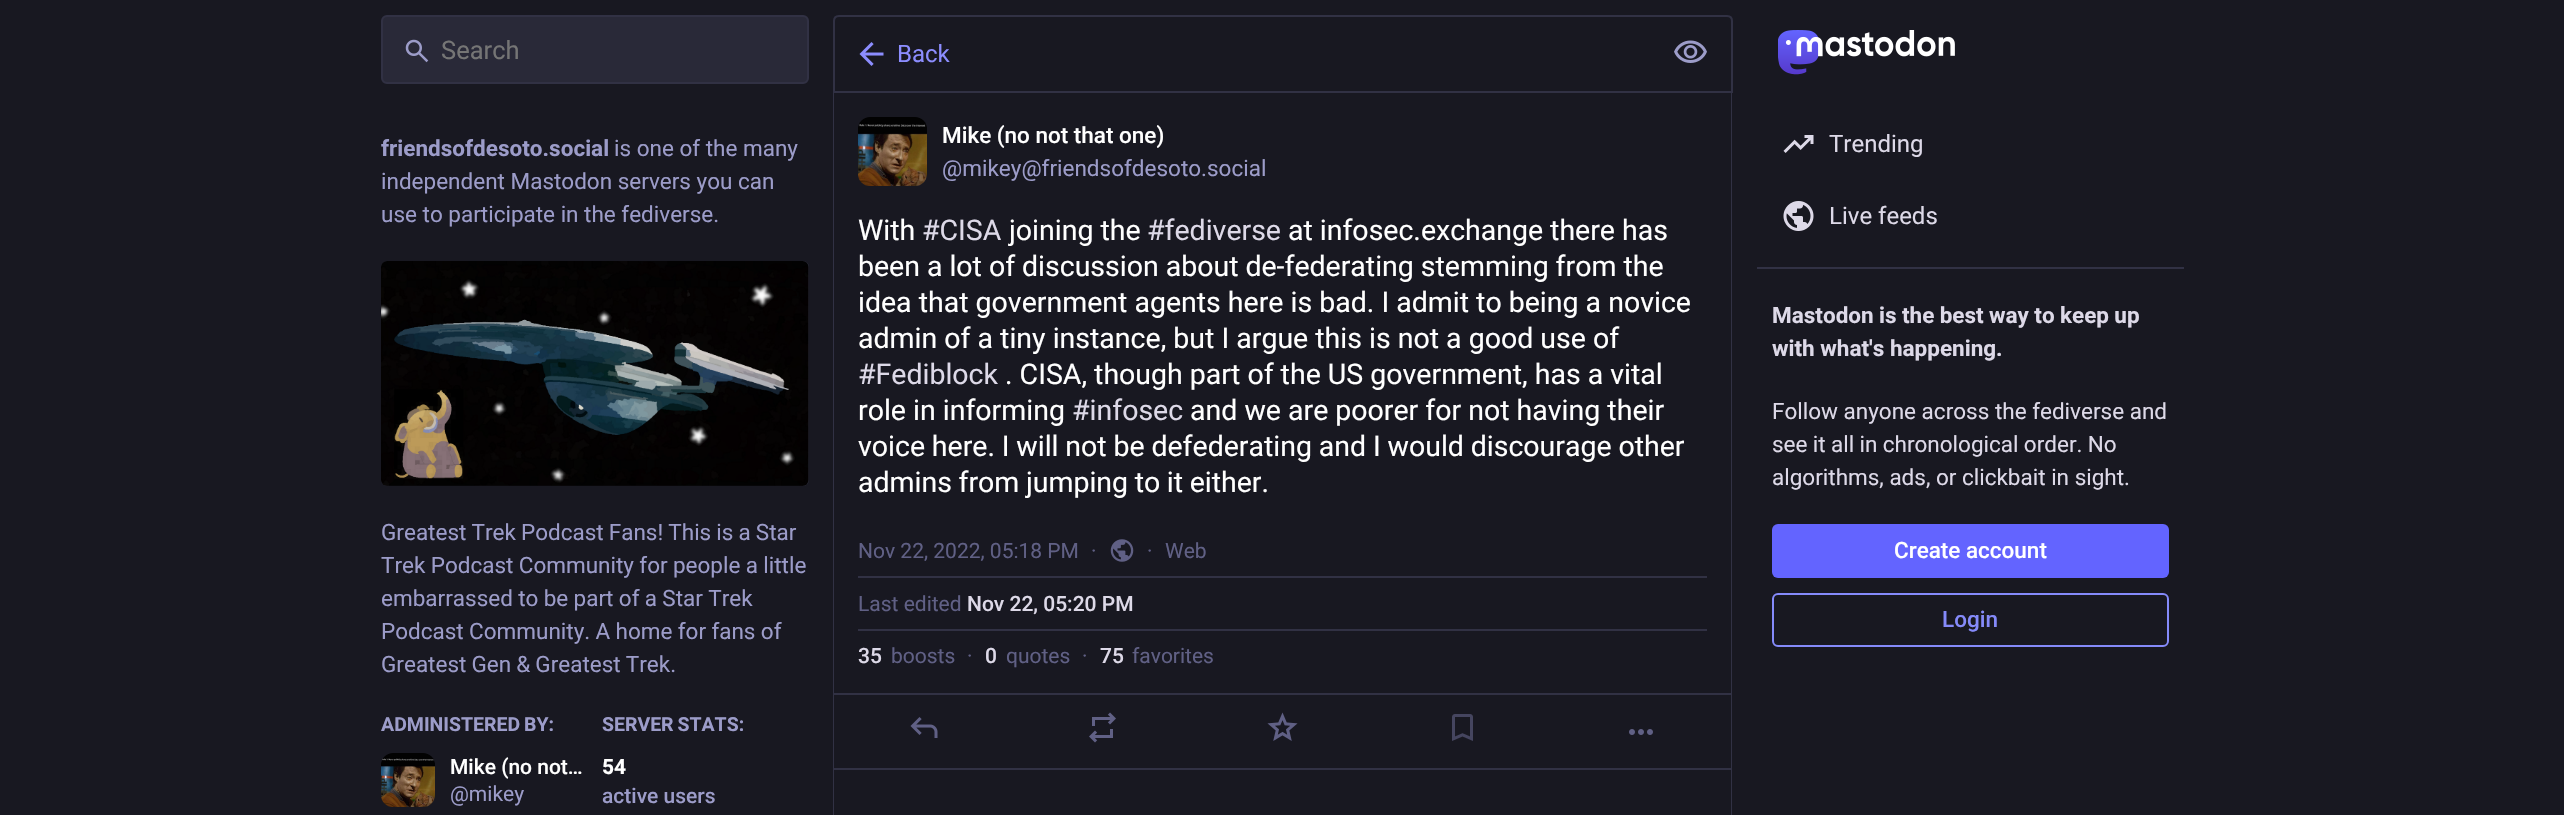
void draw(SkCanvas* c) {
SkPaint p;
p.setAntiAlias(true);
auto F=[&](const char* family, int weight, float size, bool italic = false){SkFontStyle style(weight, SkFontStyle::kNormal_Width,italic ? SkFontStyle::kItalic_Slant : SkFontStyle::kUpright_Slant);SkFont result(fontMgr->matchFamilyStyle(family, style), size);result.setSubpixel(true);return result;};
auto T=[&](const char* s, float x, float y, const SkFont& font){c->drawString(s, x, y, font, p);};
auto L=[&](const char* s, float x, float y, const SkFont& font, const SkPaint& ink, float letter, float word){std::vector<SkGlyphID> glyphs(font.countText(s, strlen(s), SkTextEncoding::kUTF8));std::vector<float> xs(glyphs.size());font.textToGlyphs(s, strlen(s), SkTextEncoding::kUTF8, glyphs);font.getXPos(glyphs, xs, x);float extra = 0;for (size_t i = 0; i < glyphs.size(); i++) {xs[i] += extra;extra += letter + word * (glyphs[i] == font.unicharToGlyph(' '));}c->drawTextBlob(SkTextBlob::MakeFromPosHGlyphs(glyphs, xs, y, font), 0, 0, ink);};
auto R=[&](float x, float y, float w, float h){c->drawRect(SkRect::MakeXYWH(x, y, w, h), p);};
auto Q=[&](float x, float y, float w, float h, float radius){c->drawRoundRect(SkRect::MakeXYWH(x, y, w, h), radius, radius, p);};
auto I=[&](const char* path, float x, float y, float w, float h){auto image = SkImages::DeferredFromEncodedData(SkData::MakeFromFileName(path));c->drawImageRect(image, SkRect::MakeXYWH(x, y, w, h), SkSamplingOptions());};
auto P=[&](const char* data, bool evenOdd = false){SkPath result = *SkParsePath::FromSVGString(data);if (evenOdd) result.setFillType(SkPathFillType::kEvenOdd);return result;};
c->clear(0xff181821);
p.setColor(0xff292938);
c->drawRoundRect(SkRect::MakeXYWH(382,16,426,67),5,5,p);
p.setStroke(true);
p.setStrokeWidth(2);
p.setColor(0xff313144);
c->drawRoundRect(SkRect::MakeXYWH(382,16,426,67),5,5,p);
I("1.png",405,39,24,24);
auto f1 = F("Roboto",400,25.5);
p.setStroke(false);
p.setColor(0xff757575);
T("Search",441,59,f1);
auto f2 = F("Roboto",700,22.5);
p.setColor(0xff9c9cc9);
T("friendsofdesoto.social",381,156,f2);
auto f3 = F("Roboto",400,22.5);
T("is one of the many",614,156,f3);
T("independent Mastodon servers you can",381,189,f3);
T("use to participate in the fediverse.",381,222,f3);
p.setColor(0xff292938);
Q(381,261,428,225,6);
I("2.png",381,261,428,225);
p.setColor(0xff9c9cc9);
L("Greatest Trek Podcast Fans! This is a Star",381,540,f3,p,0,-.5);
L("Trek Podcast Community for people a little",381,573,f3,p,0,-.25);
L("embarrassed to be part of a Star Trek",381,606,f3,p,0,-.25);
L("Podcast Community. A home for fans of",381,639,f3,p,0,-.25);
L("Greatest Gen & Greatest Trek.",381,672,f3,p,0,-.5);
auto f4 = F("Roboto",700,19.5);
L("ADMINISTERED BY:",381,731,f4,p,0,-1);
I("3.png",381,753,54,54);
auto f5 = F("Roboto",500,21);
p.setColor(0xffffffff);
T("Mike (no not…",450,774,f5);
auto f6 = F("Roboto",400,21);
p.setColor(0xff9c9cc9);
T("@mikey",450,801,f6);
L("SERVER STATS:",602,731,f4,p,0,-1);
auto f7 = F("Roboto",700,21);
p.setColor(0xffffffff);
T("54",602,774,f7);
p.setColor(0xff9c9cc9);
T("active users",602,803,f5);
p.setStroke(true);
p.setColor(0xff313144);
c->drawPath(P("M839 16h888c3 0 5 2 5 5v71h-898v-71c0-3 2-5 5-5z"),p);
I("4.png",859,42,25,24);
auto f8 = F("Roboto",400,24);
p.setStroke(false);
p.setColor(0xff8c8dff);
T("Back",897,62,f8);
I("5.png",1674,40,33,23);
c->save();
c->clipRect(SkRect::MakeXYWH(833,0,900,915));
p.setColor(0xff313144);
c->drawPath(P("M832 93h900v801c0 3-2 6-6 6h-888c-3 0-6-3-6-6zm2 0h897v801c0 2-2 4-5 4h-888c-2 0-4-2-4-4z",true),p);
c->restore();
I("6.png",858,117,69,69);
auto f9 = F("Roboto",500,22.5);
p.setColor(0xffffffff);
T("Mike (no not that one)",942,143,f9);
p.setColor(0xff9c9cc9);
T("@mikey@friendsofdesoto.social",942,176,f3);
auto f10 = F("Roboto",400,28.5);
p.setColor(0xffffffff);
T("With",858,240,f10);
p.setColor(0xffddd9e8);
T("#CISA",922,240,f10);
p.setColor(0xffffffff);
T("joining the",1009,240,f10);
p.setColor(0xffddd9e8);
T("#fediverse",1147,240,f10);
p.setColor(0xffffffff);
L("at infosec.exchange there has",1288,240,f10,p,0,-.1);
L("been a lot of discussion about de-federating stemming from the",858,276,f10,p,0,-.1);
T("idea that government agents here is bad. I admit to being a novice",858,312,f10);
T("admin of a tiny instance, but I argue this is not a good use of",858,348,f10);
p.setColor(0xffddd9e8);
T("#Fediblock",858,384,f10);
p.setColor(0xffffffff);
T(". CISA, though part of the US government, has a vital",1005,384,f10);
T("role in informing",858,420,f10);
p.setColor(0xffddd9e8);
T("#infosec",1072,420,f10);
p.setColor(0xffffffff);
T("and we are poorer for not having their",1190,420,f10);
L("voice here. I will not be defederating and I would discourage other",858,456,f10,p,0,-.25);
L("admins from jumping to it either.",858,492,f10,p,0,-.5);
p.setColor(0xff313144);
R(858,576,849,2);
p.setColor(0xff606085);
T("Nov 22, 2022, 05:18 PM",858,558,f6);
T("·",1091,558,f6);
I("7.png",1110,539,24,23);
T("·",1147,558,f6);
T("Web",1165,558,f6);
p.setColor(0xff313144);
R(858,629,849,2);
p.setColor(0xff606085);
T("Last edited",858,611,f6);
p.setColor(0xffddd9e8);
T("Nov 22, 05:20 PM",967,611,f5);
T("35",858,663,f5);
p.setColor(0xff606085);
T("boosts",891,663,f6);
T("·",967,663,f6);
p.setColor(0xffddd9e8);
T("0",985,663,f5);
p.setColor(0xff606085);
T("quotes",1006,663,f6);
T("·",1082,663,f6);
p.setColor(0xffddd9e8);
T("75",1100,663,f5);
p.setColor(0xff606085);
T("favorites",1132,663,f6);
p.setColor(0xff313144);
R(834,693,897,2);
R(834,768,897,2);
I("8.png",910,717,28,21);
I("9.png",1089,712,27,31);
I("10.png",1267,712,31,29);
I("11.png",1452,714,21,27);
I("12.png",1629,729,24,6);
I("13.png",1778,30,177,45);
I("14.png",1783,135,31,18);
p.setColor(0xffddd9e8);
T("Trending",1829,152,f8);
I("15.png",1783,201,31,30);
T("Live feeds",1829,224,f8);
p.setColor(0xff313144);
R(1757,267,427,2);
p.setColor(0xffddd9e8);
L("Mastodon is the best way to keep up",1772,323,f2,p,0,-.25);
T("with what's happening.",1772,356,f2);
T("Follow anyone across the fediverse and",1772,419,f3);
L("see it all in chronological order. No",1772,452,f3,p,0,-.25);
T("algorithms, ads, or clickbait in sight.",1772,485,f3);
p.setColor(0xff6364ff);
Q(1772,524,397,54,6);
p.setColor(0xffffffff);
T("Create account",1894,558,f9);
p.setStroke(true);
p.setColor(0xff858afa);
c->drawRoundRect(SkRect::MakeXYWH(1773,594,395,52),5,5,p);
p.setStroke(false);
T("Login",1942,627,f9);
}
